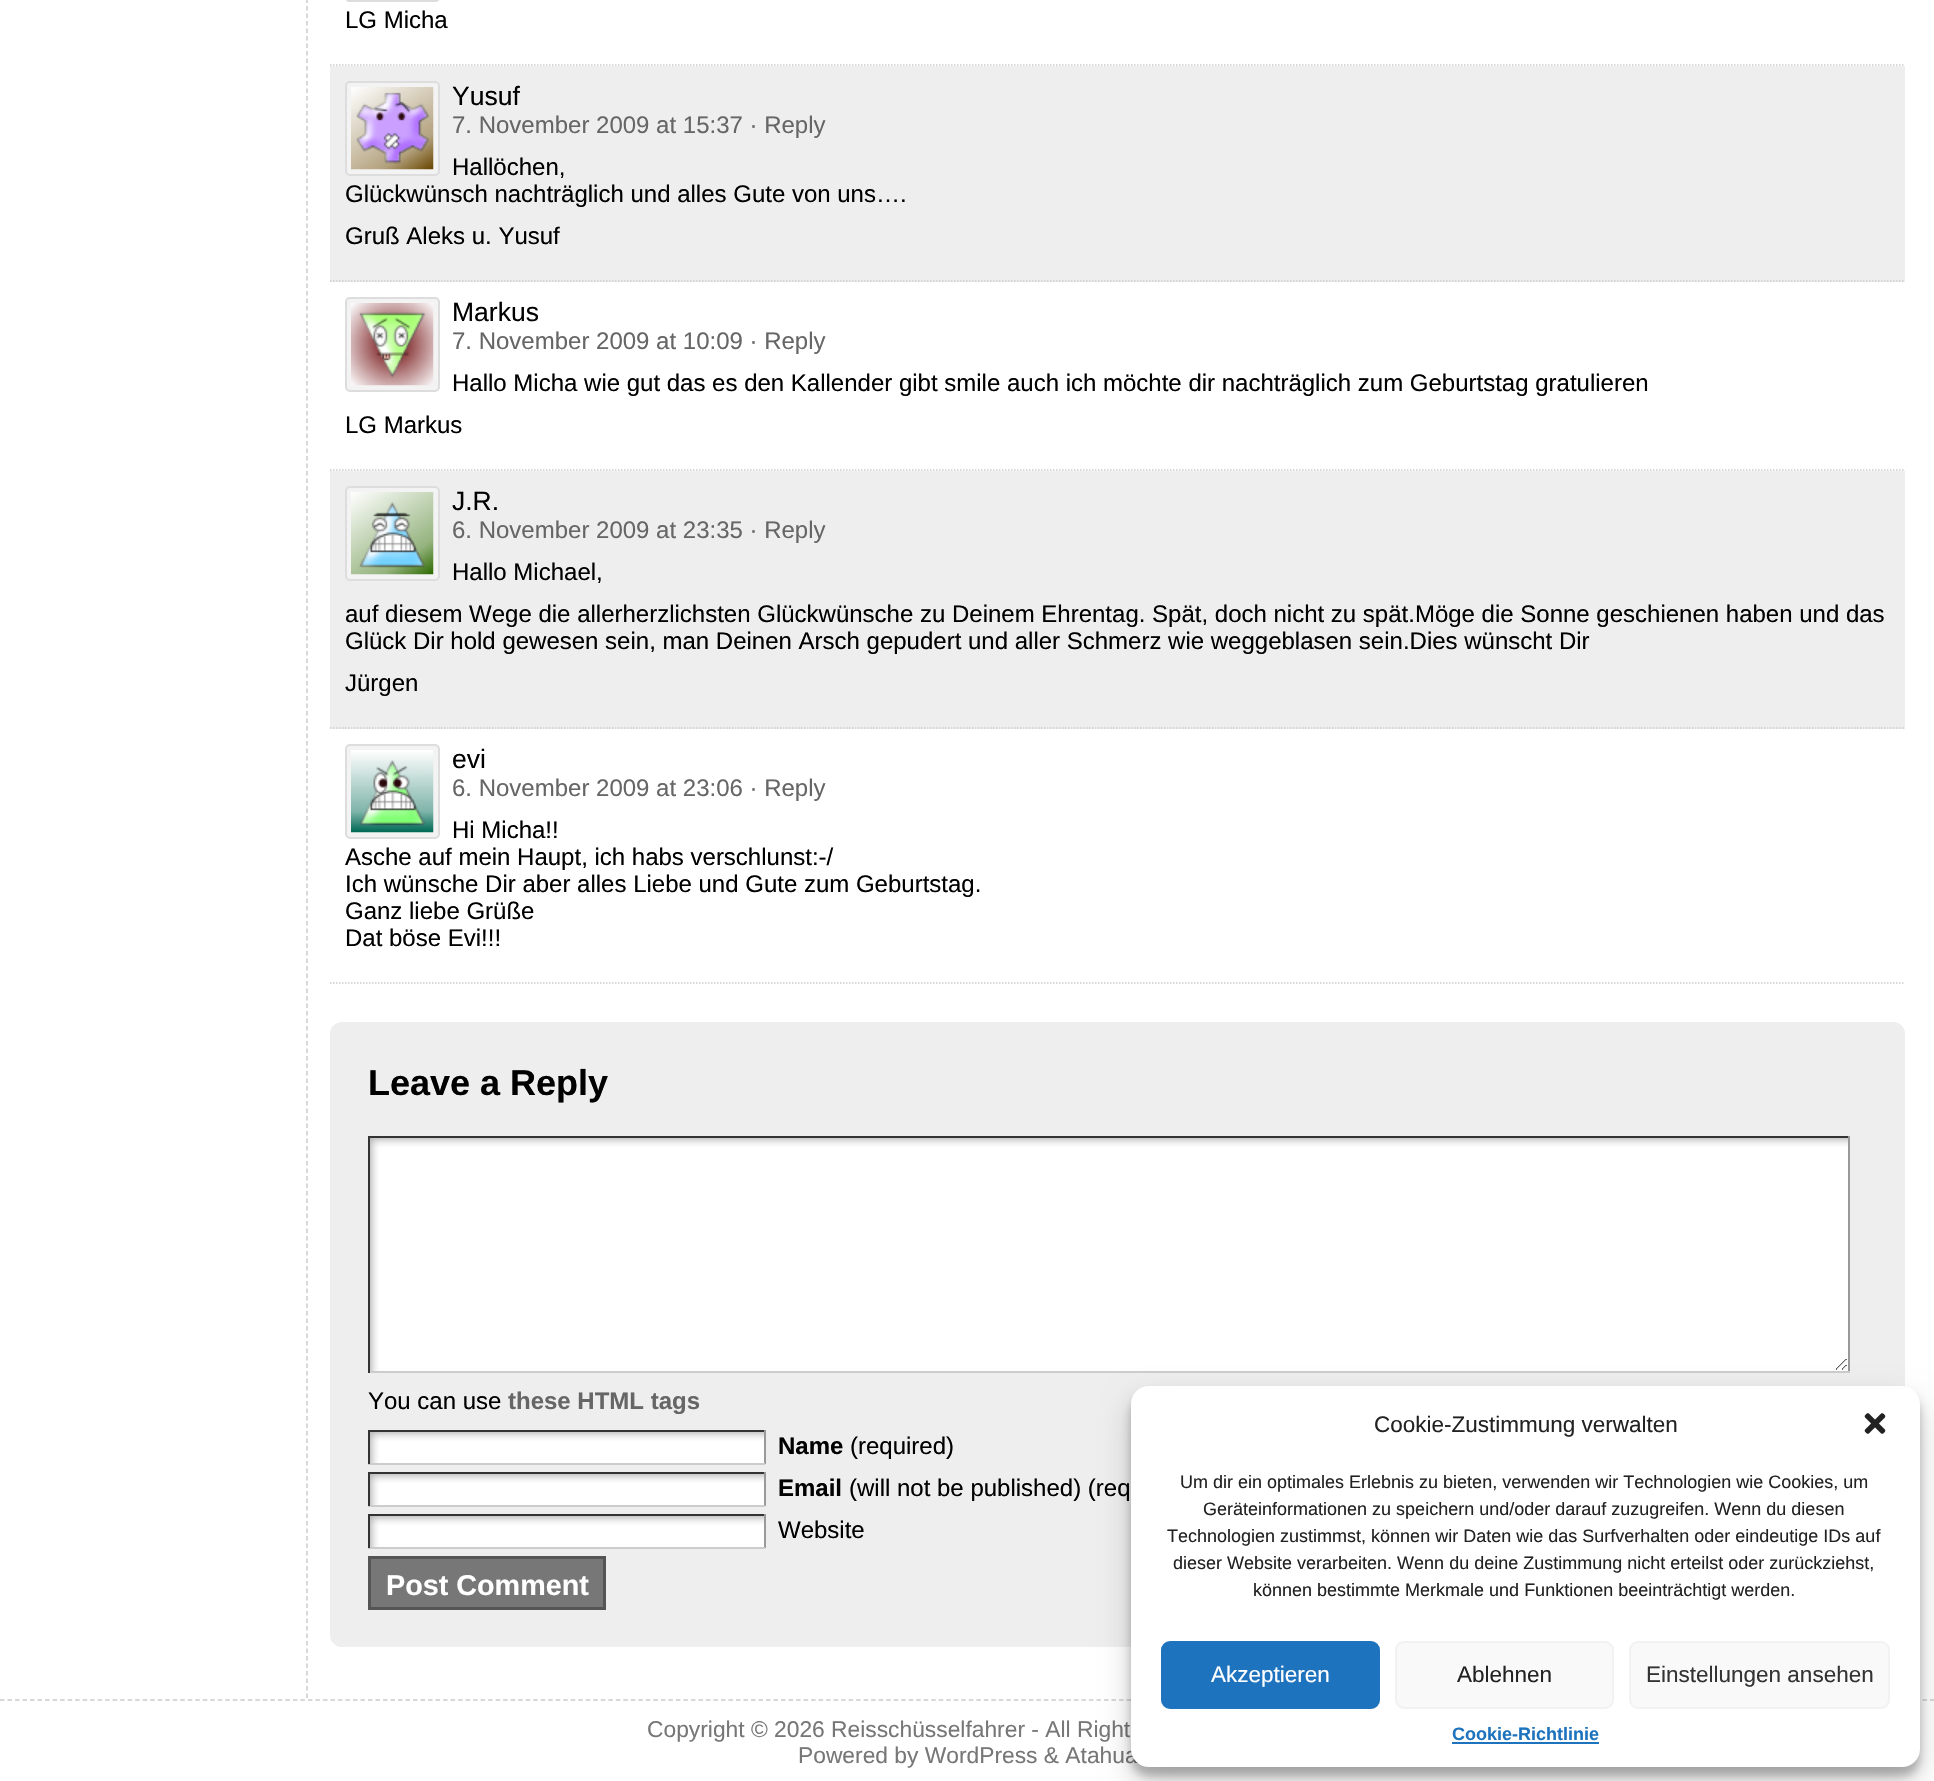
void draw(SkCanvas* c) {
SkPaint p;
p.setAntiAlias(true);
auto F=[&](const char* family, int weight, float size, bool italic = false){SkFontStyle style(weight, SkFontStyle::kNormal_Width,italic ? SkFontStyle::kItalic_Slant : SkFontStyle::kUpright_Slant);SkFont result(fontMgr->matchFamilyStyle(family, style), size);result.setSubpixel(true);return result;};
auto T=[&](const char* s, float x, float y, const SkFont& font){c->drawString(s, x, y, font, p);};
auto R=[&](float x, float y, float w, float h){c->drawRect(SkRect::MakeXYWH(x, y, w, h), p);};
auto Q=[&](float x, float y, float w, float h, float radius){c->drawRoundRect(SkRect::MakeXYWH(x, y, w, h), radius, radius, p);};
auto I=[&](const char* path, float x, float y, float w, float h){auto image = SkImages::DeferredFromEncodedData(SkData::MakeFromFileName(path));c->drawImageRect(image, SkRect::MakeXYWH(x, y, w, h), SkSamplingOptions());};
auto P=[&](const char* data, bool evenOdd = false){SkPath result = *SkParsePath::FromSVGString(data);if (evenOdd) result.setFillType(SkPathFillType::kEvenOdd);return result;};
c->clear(0xffffffff);
p.setStroke(true);
p.setStrokeWidth(1.5);
p.setColor(0xffcccccc);
p.setPathEffect(SkDashPathEffect::Make({{4.5f,3}}, 0));
c->drawPath(P("M307-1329v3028.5"),p);
p.setPathEffect(nullptr);
p.setPathEffect(SkDashPathEffect::Make({{1.5f,1.5f}}, 0));
c->drawPath(P("M330 65h1575"),p);
p.setPathEffect(nullptr);
p.setStrokeWidth(2);
p.setColor(0xffdddddd);
c->drawRoundRect(SkRect::MakeXYWH(346,-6,93,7),4,4,p);
auto f1 = F("Liberation Sans",400,24);
p.setStroke(false);
p.setColor(0xff000000);
T("LG Micha",345,28,f1);
p.setColor(0xffeeeeee);
R(330,66,1575,216);
p.setStroke(true);
p.setStrokeWidth(1.5);
p.setColor(0xffcccccc);
p.setPathEffect(SkDashPathEffect::Make({{1.5f,1.5f}}, 0));
c->drawPath(P("M330 281h1575"),p);
p.setPathEffect(nullptr);
p.setStroke(false);
p.setColor(0xfff3f3f3);
c->drawRoundRect(SkRect::MakeXYWH(346,82,93,93),4,4,p);
p.setStroke(true);
p.setStrokeWidth(2);
p.setColor(0xffdddddd);
c->drawRoundRect(SkRect::MakeXYWH(346,82,93,93),4,4,p);
I("1.png",351,87,83,83);
auto f2 = F("Liberation Sans",400,26.5);
p.setStroke(false);
p.setColor(0xff000000);
T("Yusuf",452,105,f2);
p.setColor(0xff666666);
T("7. November 2009 at 15:37 · Reply",452,133,f1);
p.setColor(0xff000000);
T("Hallöchen,",452,175,f1);
T("Glückwünsch nachträglich und alles Gute von uns….",345,202,f1);
T("Gruß Aleks u. Yusuf",345,244,f1);
p.setStroke(true);
p.setStrokeWidth(1.5);
p.setColor(0xffcccccc);
p.setPathEffect(SkDashPathEffect::Make({{1.5f,1.5f}}, 0));
c->drawPath(P("M330 470h1575"),p);
p.setPathEffect(nullptr);
p.setStroke(false);
p.setColor(0xfff3f3f3);
c->drawRoundRect(SkRect::MakeXYWH(346,298,93,93),4,4,p);
p.setStroke(true);
p.setStrokeWidth(2);
p.setColor(0xffdddddd);
c->drawRoundRect(SkRect::MakeXYWH(346,298,93,93),4,4,p);
I("2.png",351,303,83,83);
p.setStroke(false);
p.setColor(0xff000000);
T("Markus",452,321,f2);
p.setColor(0xff666666);
T("7. November 2009 at 10:09 · Reply",452,349,f1);
p.setColor(0xff000000);
T("Hallo Micha wie gut das es den Kallender gibt smile auch ich möchte dir nachträglich zum Geburtstag gratulieren",452,391,f1);
T("LG Markus",345,433,f1);
p.setColor(0xffeeeeee);
R(330,471,1575,258);
p.setStroke(true);
p.setStrokeWidth(1.5);
p.setColor(0xffcccccc);
p.setPathEffect(SkDashPathEffect::Make({{1.5f,1.5f}}, 0));
c->drawPath(P("M330 728h1575"),p);
p.setPathEffect(nullptr);
p.setStroke(false);
p.setColor(0xfff3f3f3);
c->drawRoundRect(SkRect::MakeXYWH(346,487,93,93),4,4,p);
p.setStroke(true);
p.setStrokeWidth(2);
p.setColor(0xffdddddd);
c->drawRoundRect(SkRect::MakeXYWH(346,487,93,93),4,4,p);
I("3.png",351,492,83,83);
p.setStroke(false);
p.setColor(0xff000000);
T("J.R.",452,510,f2);
p.setColor(0xff666666);
T("6. November 2009 at 23:35 · Reply",452,538,f1);
p.setColor(0xff000000);
T("Hallo Michael,",452,580,f1);
T("auf diesem Wege die allerherzlichsten Glückwünsche zu Deinem Ehrentag. Spät, doch nicht zu spät.Möge die Sonne geschienen haben und das",345,622,f1);
T("Glück Dir hold gewesen sein, man Deinen Arsch gepudert und aller Schmerz wie weggeblasen sein.Dies wünscht Dir",345,649,f1);
T("Jürgen",345,691,f1);
p.setStroke(true);
p.setStrokeWidth(1.5);
p.setColor(0xffcccccc);
p.setPathEffect(SkDashPathEffect::Make({{1.5f,1.5f}}, 0));
c->drawPath(P("M330 983h1575"),p);
p.setPathEffect(nullptr);
p.setStroke(false);
p.setColor(0xfff3f3f3);
c->drawRoundRect(SkRect::MakeXYWH(346,745,93,93),4,4,p);
p.setStroke(true);
p.setStrokeWidth(2);
p.setColor(0xffdddddd);
c->drawRoundRect(SkRect::MakeXYWH(346,745,93,93),4,4,p);
I("4.png",351,750,83,83);
p.setStroke(false);
p.setColor(0xff000000);
T("evi",452,768,f2);
p.setColor(0xff666666);
T("6. November 2009 at 23:06 · Reply",452,796,f1);
p.setColor(0xff000000);
T("Hi Micha!!",452,838,f1);
T("Asche auf mein Haupt, ich habs verschlunst:-/",345,865,f1);
T("Ich wünsche Dir aber alles Liebe und Gute zum Geburtstag.",345,892,f1);
T("Ganz liebe Grüße",345,919,f1);
T("Dat böse Evi!!!",345,946,f1);
p.setColor(0xffeeeeee);
Q(330,1022,1575,625,12);
auto f3 = F("Liberation Sans",700,36);
p.setColor(0xff000000);
T("Leave a Reply",368,1095,f3);
I("5.png",370,1138,1478,233);
p.setColor(0xff333333);
R(368,1136,1482,2);
p.setColor(0xff999999);
R(1848,1136,2,237);
p.setColor(0xffcccccc);
R(368,1371,1482,2);
p.setColor(0xff333333);
R(368,1136,2,237);
p.setColor(0xff000000);
T("You can use",368,1409,f1);
auto f4 = F("Liberation Sans",700,24);
p.setColor(0xff666666);
T("these HTML tags",508,1409,f4);
I("6.png",370,1432,394,31);
p.setColor(0xff333333);
R(368,1430,397,2);
p.setColor(0xff999999);
R(764,1430,2,34);
p.setColor(0xffcccccc);
R(368,1463,397,2);
p.setColor(0xff333333);
R(368,1430,2,34);
p.setColor(0xff000000);
T("Name",778,1454,f4);
T("(required)",850,1454,f1);
I("6.png",370,1474,394,31);
p.setColor(0xff333333);
R(368,1472,397,2);
p.setColor(0xff999999);
R(764,1472,2,34);
p.setColor(0xffcccccc);
R(368,1505,397,2);
p.setColor(0xff333333);
R(368,1472,2,34);
p.setColor(0xff000000);
T("Email",778,1496,f4);
T("(will not be published) (req",849,1496,f1);
I("6.png",370,1516,394,31);
p.setColor(0xff333333);
R(368,1514,397,2);
p.setColor(0xff999999);
R(764,1514,2,34);
p.setColor(0xffcccccc);
R(368,1547,397,2);
p.setColor(0xff333333);
R(368,1514,2,34);
p.setColor(0xff000000);
T("Website",778,1538,f1);
p.setColor(0xff777777);
c->drawRect(SkRect::MakeXYWH(369.5,1557.5,235,51),p);
p.setStroke(true);
p.setStrokeWidth(3);
p.setColor(0xff555555);
c->drawRect(SkRect::MakeXYWH(369.5,1557.5,235,51),p);
auto f5 = F("Liberation Sans",700,28.75);
p.setStroke(false);
p.setColor(0xffffffff);
T("Post Comment",386,1595,f5);
p.setStroke(true);
p.setStrokeWidth(1.5);
p.setColor(0xffcccccc);
p.setPathEffect(SkDashPathEffect::Make({{4.5f,3.01f}}, 0));
c->drawPath(P("M0 1700h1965"),p);
p.setPathEffect(nullptr);
auto f6 = F("Liberation Sans",400,22.8);
p.setStroke(false);
p.setColor(0xff777777);
T("Copyright © 2026 Reisschüsselfahrer - All Right",647,1737,f6);
T("Powered by WordPress & Atahua",798,1763,f6);
p.setColor(0x3b000000);
p.setMaskFilter(SkMaskFilter::MakeBlur(kNormal_SkBlurStyle, 4.5));
c->drawRoundRect(SkRect::MakeXYWH(1131,1395,789,381),18,18,p);
p.setMaskFilter(nullptr);
p.setColor(0x30000000);
p.setMaskFilter(SkMaskFilter::MakeBlur(kNormal_SkBlurStyle, 15));
c->drawRoundRect(SkRect::MakeXYWH(1131,1401,789,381),18,18,p);
p.setMaskFilter(nullptr);
p.setColor(0xffffffff);
Q(1131,1386,789,381,18);
auto f7 = F("Liberation Sans",400,22.5);
p.setColor(0xff222222);
T("Cookie-Zustimmung verwalten",1374,1432,f7);
I("7.png",1864,1413,22,21);
auto f8 = F("Liberation Sans",400,18);
T("Um dir ein optimales Erlebnis zu bieten, verwenden wir Technologien wie Cookies, um",1180,1488,f8);
T("Geräteinformationen zu speichern und/oder darauf zuzugreifen. Wenn du diesen",1203,1515,f8);
T("Technologien zustimmst, können wir Daten wie das Surfverhalten oder eindeutige IDs auf",1167,1542,f8);
T("dieser Website verarbeiten. Wenn du deine Zustimmung nicht erteilst oder zurückziehst,",1173,1569,f8);
T("können bestimmte Merkmale und Funktionen beeinträchtigt werden.",1253,1596,f8);
p.setColor(0xff1e73be);
c->drawRoundRect(SkRect::MakeXYWH(1162,1642,217,66),8,8,p);
p.setStroke(true);
p.setStrokeWidth(2);
c->drawRoundRect(SkRect::MakeXYWH(1162,1642,217,66),8,8,p);
p.setStroke(false);
p.setColor(0xffffffff);
T("Akzeptieren",1211,1682,f7);
p.setColor(0xfff9f9f9);
c->drawRoundRect(SkRect::MakeXYWH(1396,1642,217,66),8,8,p);
p.setStroke(true);
p.setColor(0xfff2f2f2);
c->drawRoundRect(SkRect::MakeXYWH(1396,1642,217,66),8,8,p);
p.setStroke(false);
p.setColor(0xff222222);
T("Ablehnen",1457,1682,f7);
p.setColor(0xfff9f9f9);
c->drawRoundRect(SkRect::MakeXYWH(1630,1642,259,66),8,8,p);
p.setStroke(true);
p.setColor(0xfff2f2f2);
c->drawRoundRect(SkRect::MakeXYWH(1630,1642,259,66),8,8,p);
p.setStroke(false);
p.setColor(0xff333333);
T("Einstellungen ansehen",1646,1682,f7);
auto f9 = F("Liberation Sans",700,18);
p.setColor(0xff1e73be);
T("Cookie-Richtlinie",1452,1740,f9);
R(1452,1742,147,2);
}
